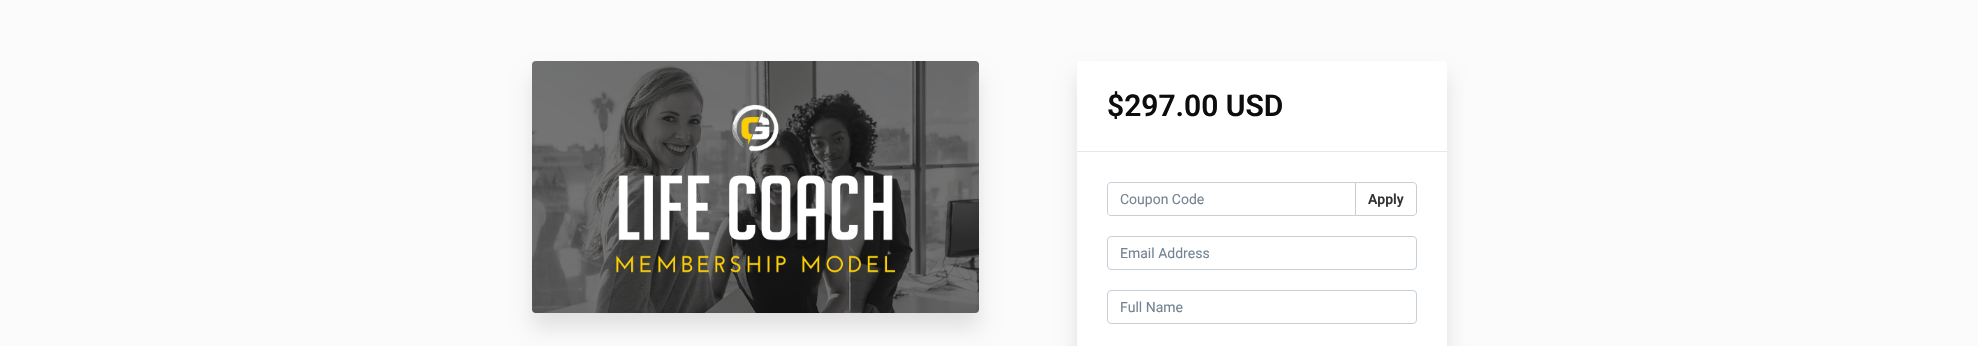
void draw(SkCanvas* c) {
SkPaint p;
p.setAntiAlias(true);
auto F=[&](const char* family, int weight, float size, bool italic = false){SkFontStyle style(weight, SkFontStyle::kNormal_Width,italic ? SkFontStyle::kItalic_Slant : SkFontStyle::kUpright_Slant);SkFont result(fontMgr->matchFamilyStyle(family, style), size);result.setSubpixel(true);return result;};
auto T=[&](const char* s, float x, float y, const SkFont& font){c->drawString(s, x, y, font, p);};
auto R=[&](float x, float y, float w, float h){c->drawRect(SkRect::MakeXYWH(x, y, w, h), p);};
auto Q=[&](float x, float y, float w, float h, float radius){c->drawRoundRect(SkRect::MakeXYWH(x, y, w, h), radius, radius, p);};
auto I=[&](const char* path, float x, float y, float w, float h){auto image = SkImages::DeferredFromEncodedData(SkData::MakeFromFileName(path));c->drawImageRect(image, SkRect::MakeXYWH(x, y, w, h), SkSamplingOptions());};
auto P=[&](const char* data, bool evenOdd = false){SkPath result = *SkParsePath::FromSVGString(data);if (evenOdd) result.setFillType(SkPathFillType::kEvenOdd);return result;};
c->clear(0xfffbfbfb);
p.setColor(0x1a000000);
p.setMaskFilter(SkMaskFilter::MakeBlur(kNormal_SkBlurStyle, 10));
c->drawRoundRect(SkRect::MakeXYWH(532,76,447,252),4,4,p);
p.setMaskFilter(nullptr);
I("1.png",532,61,447,252);
p.setMaskFilter(SkMaskFilter::MakeBlur(kNormal_SkBlurStyle, 10));
c->drawRoundRect(SkRect::MakeXYWH(1077,76,370,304),4,4,p);
p.setMaskFilter(nullptr);
p.setColor(0xffffffff);
Q(1077,61,370,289,4);
p.setColor(0xffe5e9e9);
R(1077,151,370,1);
auto f1 = F("Roboto",600,30);
p.setColor(0xff0d0d0d);
T("$297.00 USD",1107,116,f1);
p.setStroke(true);
p.setStrokeWidth(1);
p.setColor(0xffc7cfd8);
c->drawPath(P("M1111 182.5h244.5v33h-244.5c-2 0-3.5-1.5-3.5-3.5v-26c0-2 1.5-3.5 3.5-3.5z"),p);
auto f2 = F("Roboto",400,14);
p.setStroke(false);
p.setColor(0xff748493);
T("Coupon Code",1120,204,f2);
p.setColor(0xffffffff);
c->drawPath(P("M1355.5 182.5h57.5c2 0 3.5 1.5 3.5 3.5v26c0 2-1.5 3.5-3.5 3.5h-57.5z"),p);
p.setStroke(true);
p.setColor(0xffcccccc);
c->drawPath(P("M1355.5 182.5h57.5c2 0 3.5 1.5 3.5 3.5v26c0 2-1.5 3.5-3.5 3.5h-57.5z"),p);
auto f3 = F("Roboto",600,14);
p.setStroke(false);
p.setColor(0xff333333);
T("Apply",1368,204,f3);
p.setStroke(true);
p.setColor(0xffc7cfd8);
c->drawRoundRect(SkRect::MakeXYWH(1107.5,236.5,309,33),3.5,3.5,p);
p.setStroke(false);
p.setColor(0xff748493);
T("Email Address",1120,258,f2);
p.setStroke(true);
p.setColor(0xffc7cfd8);
c->drawRoundRect(SkRect::MakeXYWH(1107.5,290.5,309,33),3.5,3.5,p);
p.setStroke(false);
p.setColor(0xff748493);
T("Full Name",1120,312,f2);
}
